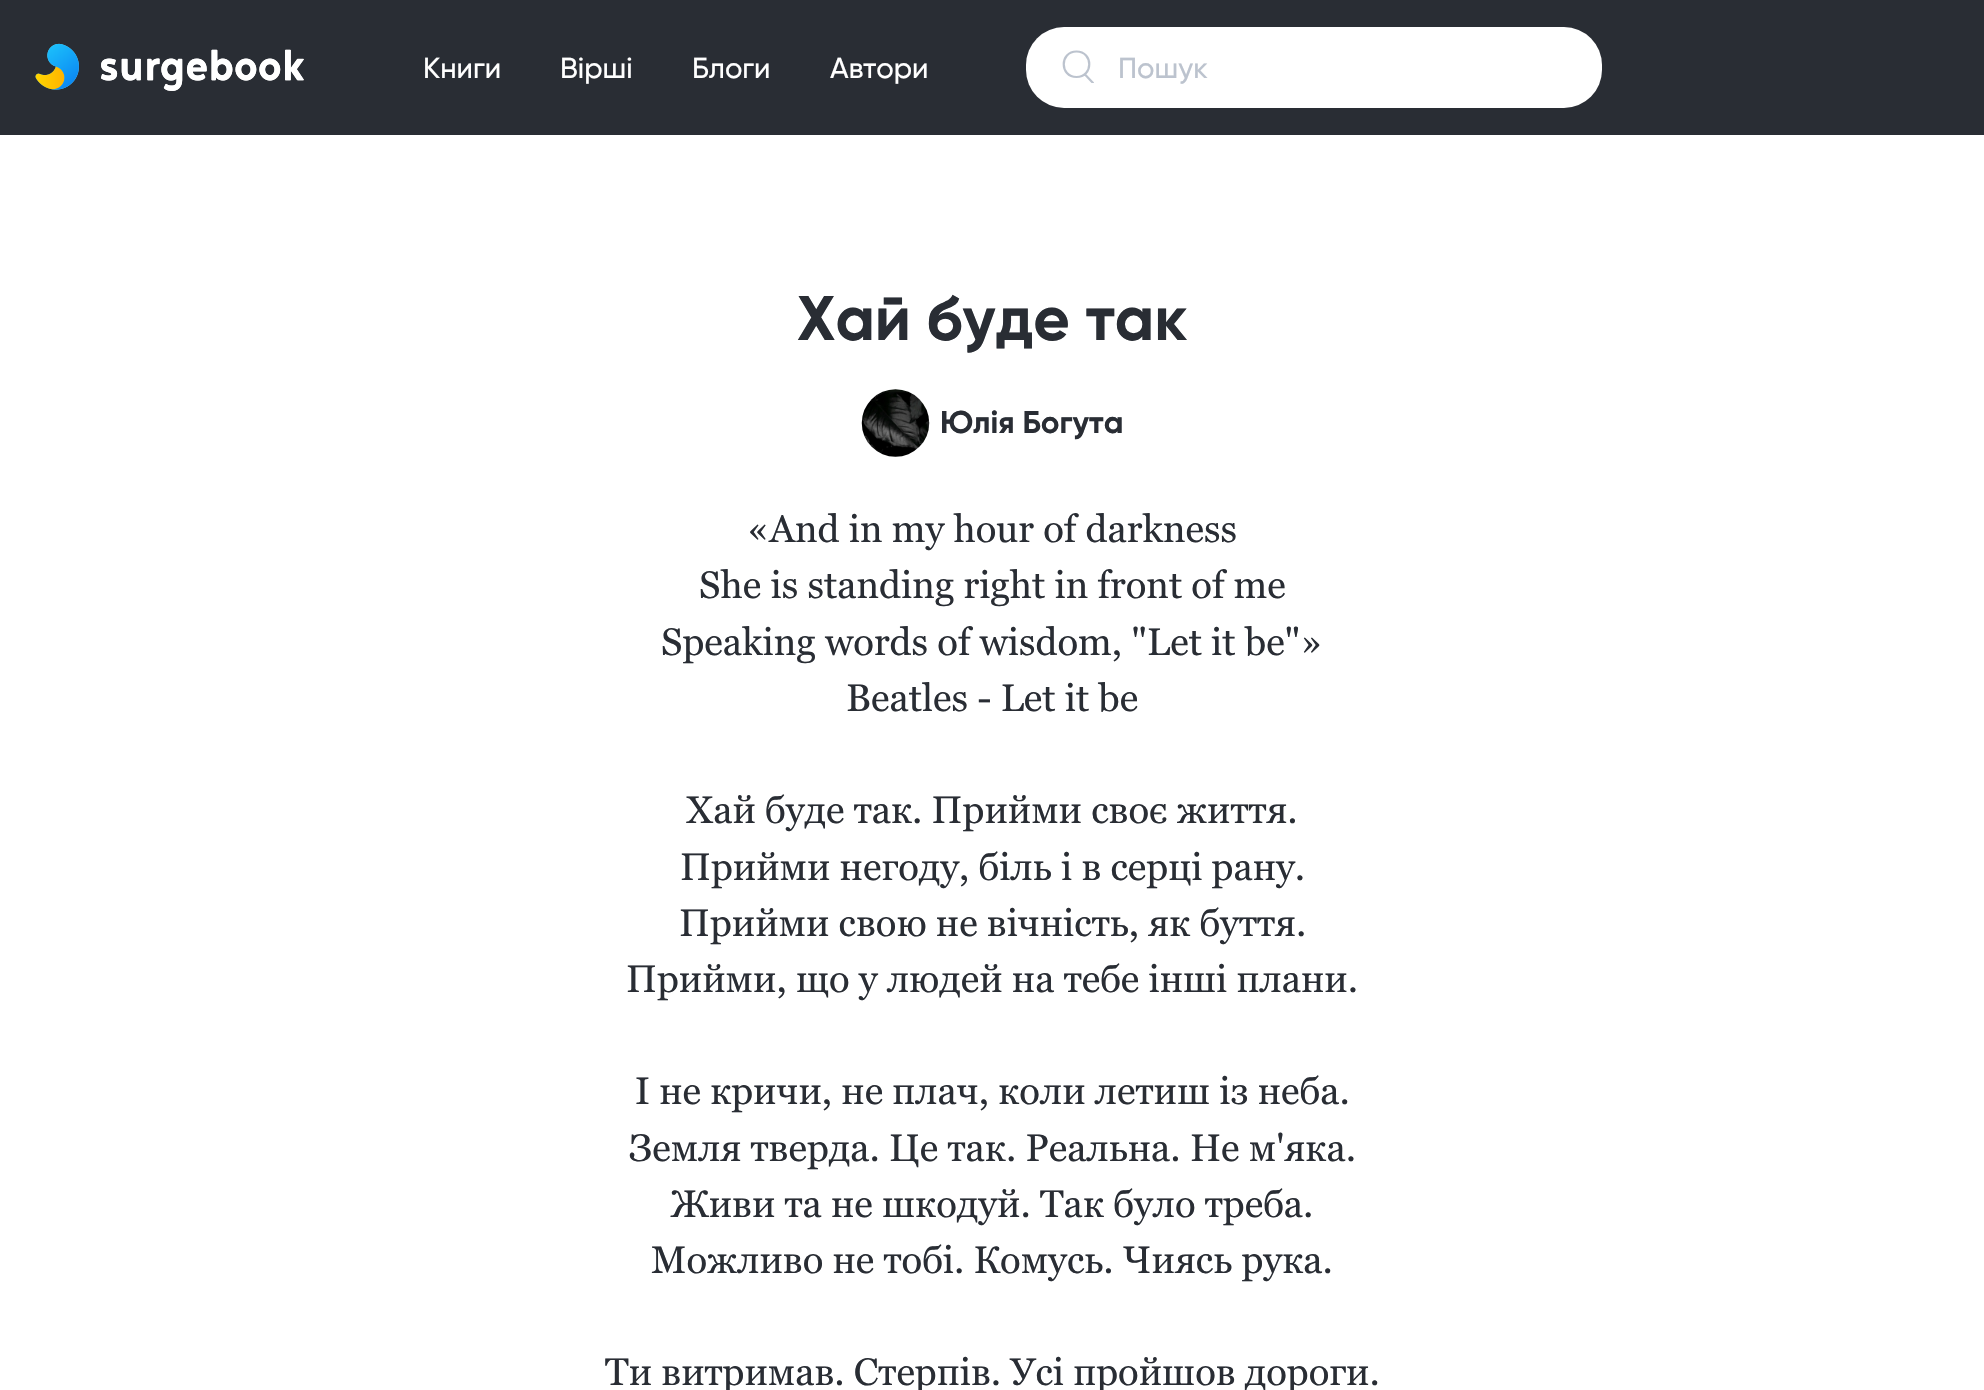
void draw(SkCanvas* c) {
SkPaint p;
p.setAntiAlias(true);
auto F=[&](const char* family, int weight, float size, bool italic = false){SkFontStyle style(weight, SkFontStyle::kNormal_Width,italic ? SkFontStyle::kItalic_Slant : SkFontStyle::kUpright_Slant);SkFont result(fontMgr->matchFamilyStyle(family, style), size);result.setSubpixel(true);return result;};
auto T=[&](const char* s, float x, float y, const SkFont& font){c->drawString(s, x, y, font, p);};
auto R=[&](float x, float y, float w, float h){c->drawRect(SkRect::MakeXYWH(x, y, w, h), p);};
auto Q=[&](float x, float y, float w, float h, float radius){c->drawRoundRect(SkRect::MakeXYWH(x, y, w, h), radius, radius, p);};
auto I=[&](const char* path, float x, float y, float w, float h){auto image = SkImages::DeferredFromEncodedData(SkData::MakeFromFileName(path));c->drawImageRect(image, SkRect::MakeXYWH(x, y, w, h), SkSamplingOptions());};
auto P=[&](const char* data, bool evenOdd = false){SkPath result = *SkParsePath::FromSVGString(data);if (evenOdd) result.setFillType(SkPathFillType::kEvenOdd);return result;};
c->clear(0xffffffff);
p.setColor(0xff292d34);
R(0,0,1984,135);
I("1.png",35,43,269,48);
auto f1 = F("Gilroy",500,29);
p.setColor(0xffffffff);
T("Книги",423,78,f1);
T("Вірші",560,78,f1);
T("Блоги",692,78,f1);
T("Автори",830,78,f1);
Q(1026,27,576,81,38);
c->save();
c->clipRect(SkRect::MakeXYWH(1062,50,34,33));
p.setStroke(true);
p.setStrokeWidth(2.2);
p.setStrokeCap(SkPaint::kRound_Cap);
p.setStrokeJoin(SkPaint::kRound_Join);
p.setColor(0xffbcc3ce);
c->drawPath(P("M1076.5 51.5c17 0 17 25.5 0 25.5c-17 0-17-25.5 0-25.5zm9 23.5l7.5 8"),p);
c->restore();
p.setStroke(false);
T("Пошук",1118,78,f1);
auto f2 = F("Gilroy",700,63);
p.setColor(0xff292d34);
T("Хай буде так",797,340,f2);
I("2.png",861,389,69,68);
auto f3 = F("Gilroy",700,31.5);
T("Юлія Богута",940,433,f3);
auto f4 = F("Georgia",400,38.25);
T("«And in my hour of darkness",747,542,f4);
T("She is standing right in front of me",699,598,f4);
T("Speaking words of wisdom, \"Let it be\"»",661,655,f4);
T("Beatles - Let it be",846,711,f4);
T("Хай буде так. Прийми своє життя.",686,823,f4);
T("Прийми негоду, біль і в серці рану.",680,880,f4);
T("Прийми свою не вічність, як буття.",679,936,f4);
T("Прийми, що у людей на тебе інші плани.",626,992,f4);
T("І не кричи, не плач, коли летиш із неба.",635,1104,f4);
T("Земля тверда. Це так. Реальна. Не м'яка.",629,1161,f4);
T("Живи та не шкодуй. Так було треба.",671,1217,f4);
T("Можливо не тобі. Комусь. Чиясь рука.",651,1273,f4);
T("Ти витримав. Стерпів. Усі пройшов дороги.",605,1385,f4);
}
